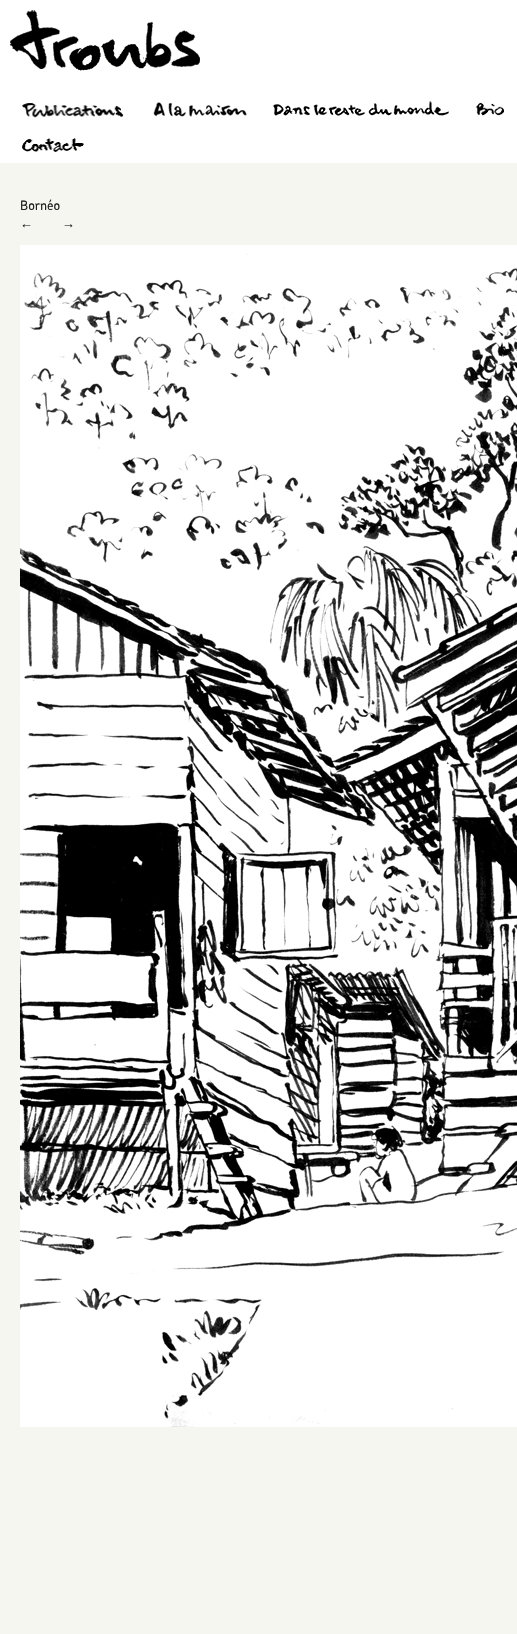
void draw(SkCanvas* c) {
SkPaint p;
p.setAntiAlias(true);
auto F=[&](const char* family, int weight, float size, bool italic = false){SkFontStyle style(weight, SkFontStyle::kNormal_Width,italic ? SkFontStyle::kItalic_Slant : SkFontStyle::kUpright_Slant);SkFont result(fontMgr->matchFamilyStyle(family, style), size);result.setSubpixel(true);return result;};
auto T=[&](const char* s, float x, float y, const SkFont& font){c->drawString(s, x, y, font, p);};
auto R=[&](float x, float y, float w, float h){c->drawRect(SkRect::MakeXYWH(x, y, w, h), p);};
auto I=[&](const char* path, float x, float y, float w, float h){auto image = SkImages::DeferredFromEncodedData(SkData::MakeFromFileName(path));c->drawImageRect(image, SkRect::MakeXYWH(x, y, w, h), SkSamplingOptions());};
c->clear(0xfff6f6f1);
p.setColor(0xffffffff);
R(0,0,517,163);
I("1.png",10,10,190,61);
I("2.png",22,103,102,15);
I("3.png",153,102,94,15);
I("4.png",273,101,176,15);
I("5.png",475,102,29,14);
I("6.png",22,138,62,14);
auto f1 = F("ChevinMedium",500,13);
p.setColor(0xff222222);
T("Bornéo",20,210,f1);
auto f2 = F("Liberation Sans",400,13);
T("←",20,228,f2);
T("→",62,228,f2);
I("7.png",20,245,497,1182);
}
